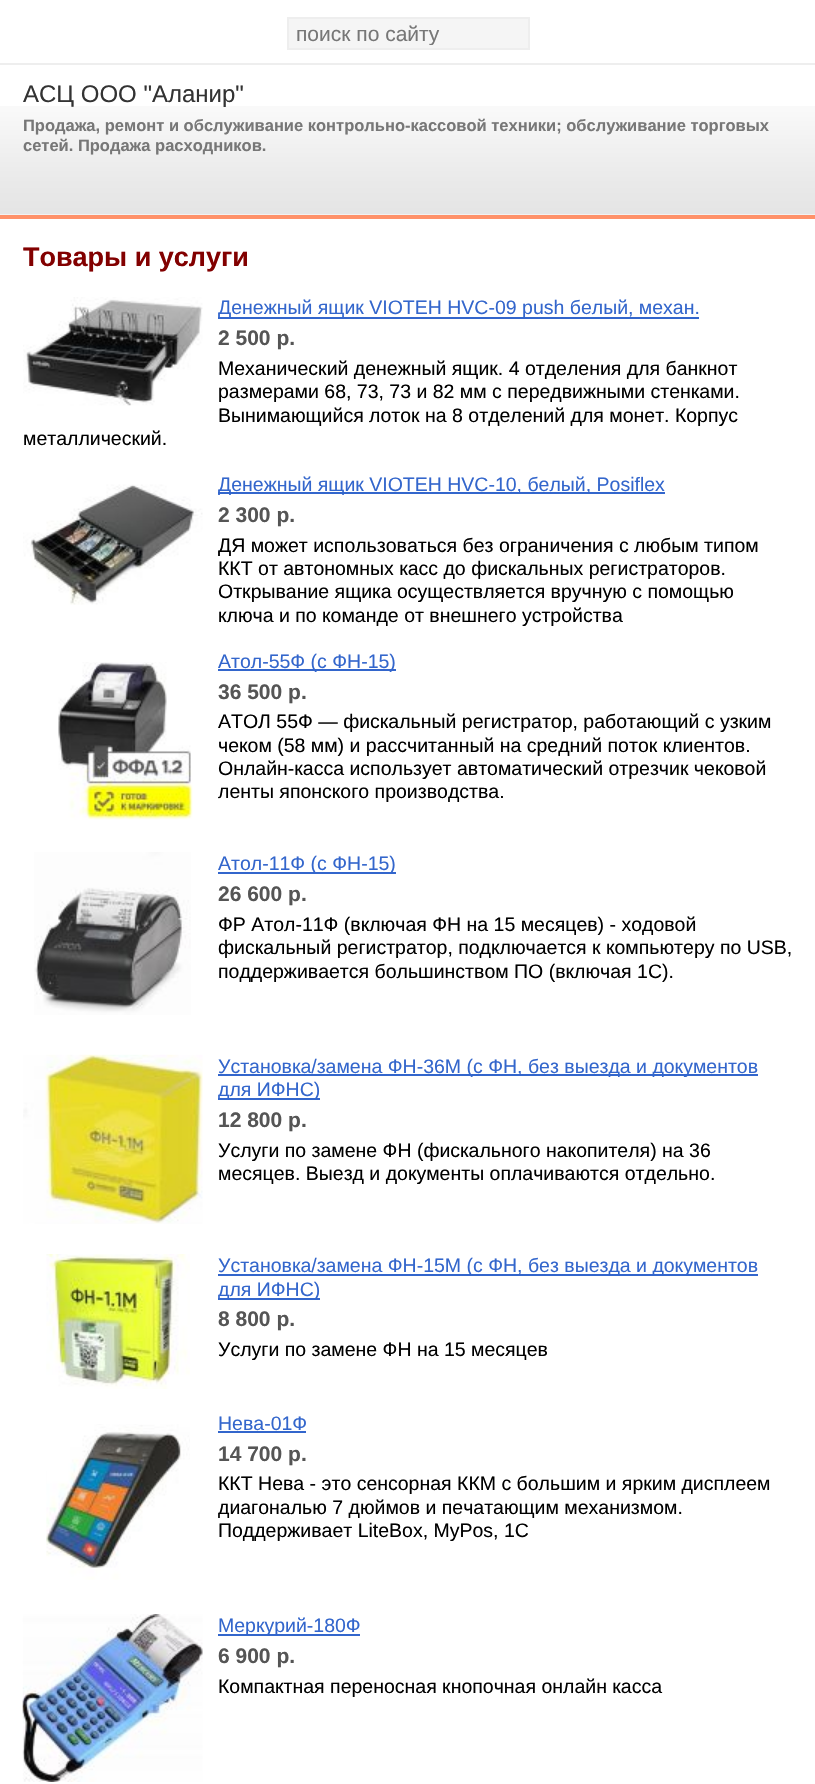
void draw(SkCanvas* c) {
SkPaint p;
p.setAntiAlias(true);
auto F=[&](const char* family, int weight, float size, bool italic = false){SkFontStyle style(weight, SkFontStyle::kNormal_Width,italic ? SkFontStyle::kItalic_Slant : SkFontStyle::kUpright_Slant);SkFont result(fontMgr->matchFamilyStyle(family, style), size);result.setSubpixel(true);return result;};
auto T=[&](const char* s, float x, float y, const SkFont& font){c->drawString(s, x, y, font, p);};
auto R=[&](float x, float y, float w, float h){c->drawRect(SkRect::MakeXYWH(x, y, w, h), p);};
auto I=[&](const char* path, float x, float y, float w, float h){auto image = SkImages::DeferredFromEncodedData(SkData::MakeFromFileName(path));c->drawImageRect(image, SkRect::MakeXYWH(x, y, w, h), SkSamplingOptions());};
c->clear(0xffffffff);
p.setColor(0xffeeeeee);
R(0,63,815,2);
p.setColor(0xfff5f5f5);
c->drawRect(SkRect::MakeXYWH(288,18,241,31),p);
p.setStroke(true);
p.setStrokeWidth(2);
p.setColor(0xffeeeeee);
c->drawRect(SkRect::MakeXYWH(288,18,241,31),p);
c->save();
c->clipRect(SkRect::MakeXYWH(296,21,225,24));
auto f1 = F("Liberation Sans",400,21);
p.setStroke(false);
p.setColor(0xff777777);
T("поиск по сайту",296,41,f1);
c->restore();
I("1.png",0,106,815,109);
p.setColor(0xffff9169);
R(0,215,815,4);
auto f2 = F("Liberation Sans",400,24);
p.setColor(0xff333333);
T("АСЦ ООО \"Аланир\"",23,102,f2);
auto f3 = F("Liberation Sans",700,16.5);
p.setColor(0xff777777);
T("Продажа, ремонт и обслуживание контрольно-кассовой техники; обслуживание торговых",23,131,f3);
T("сетей. Продажа расходников.",23,151,f3);
c->save();
c->clipRect(SkRect::MakeXYWH(23,242,771,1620));
auto f4 = F("Liberation Sans",700,27);
p.setColor(0xff820000);
T("Товары и услуги",23,266,f4);
c->restore();
I("2.png",23,297,180,109);
p.setColor(0xff3366cc);
R(218,317,481,2);
auto f5 = F("Liberation Sans",400,19.5);
T("Денежный ящик VIOTEH HVC-09 push белый, механ.",218,314,f5);
auto f6 = F("Liberation Sans",700,21);
p.setColor(0xff555555);
T("2 500 р.",218,345,f6);
p.setColor(0xff000000);
T("Механический денежный ящик. 4 отделения для банкнот",218,375,f5);
T("размерами 68, 73, 73 и 82 мм с передвижными стенками.",218,398,f5);
T("Вынимающийся лоток на 8 отделений для монет. Корпус",218,422,f5);
T("металлический.",23,445,f5);
I("3.png",23,484,180,121);
p.setColor(0xff3366cc);
R(218,492,447,2);
T("Денежный ящик VIOTEH HVC-10, белый, Posiflex",218,491,f5);
p.setColor(0xff555555);
T("2 300 р.",218,522,f6);
p.setColor(0xff000000);
T("ДЯ может использоваться без ограничения с любым типом",218,552,f5);
T("ККТ от автономных касс до фискальных регистраторов.",218,575,f5);
T("Открывание ящика осуществляется вручную с помощью",218,598,f5);
T("ключа и по команде от внешнего устройства",218,622,f5);
I("4.png",58,662,135,158);
p.setColor(0xff3366cc);
R(218,669,178,2);
T("Атол-55Ф (с ФН-15)",218,668,f5);
p.setColor(0xff555555);
T("36 500 р.",218,699,f6);
p.setColor(0xff000000);
T("АТОЛ 55Ф — фискальный регистратор, работающий с узким",218,728,f5);
T("чеком (58 мм) и рассчитанный на средний поток клиентов.",218,752,f5);
T("Онлайн-касса использует автоматический отрезчик чековой",218,775,f5);
T("ленты японского производства.",218,798,f5);
I("5.png",34,852,157,163);
p.setColor(0xff3366cc);
R(218,872,178,2);
T("Атол-11Ф (с ФН-15)",218,870,f5);
p.setColor(0xff555555);
T("26 600 р.",218,901,f6);
p.setColor(0xff000000);
T("ФР Атол-11Ф (включая ФН на 15 месяцев) - ходовой",218,931,f5);
T("фискальный регистратор, подключается к компьютеру по USB,",218,954,f5);
T("поддерживается большинством ПО (включая 1С).",218,978,f5);
I("6.png",23,1054,180,170);
p.setColor(0xff3366cc);
R(218,1074,540,2);
T("Установка/замена ФН-36М (с ФН, без выезда и документов",218,1073,f5);
R(218,1098,102,2);
T("для ИФНС)",218,1096,f5);
p.setColor(0xff555555);
T("12 800 р.",218,1127,f6);
p.setColor(0xff000000);
T("Услуги по замене ФН (фискального накопителя) на 36",218,1157,f5);
T("месяцев. Выезд и документы оплачиваются отдельно.",218,1180,f5);
I("7.png",46,1254,144,135);
p.setColor(0xff3366cc);
R(218,1274,540,2);
T("Установка/замена ФН-15М (с ФН, без выезда и документов",218,1272,f5);
R(218,1298,102,2);
T("для ИФНС)",218,1296,f5);
p.setColor(0xff555555);
T("8 800 р.",218,1326,f6);
p.setColor(0xff000000);
T("Услуги по замене ФН на 15 месяцев",218,1356,f5);
I("8.png",46,1424,144,156);
p.setColor(0xff3366cc);
T("Нева-01Ф",218,1430,f5);
R(218,1431,88,2);
p.setColor(0xff555555);
T("14 700 р.",218,1461,f6);
p.setColor(0xff000000);
T("ККТ Нева - это сенсорная ККМ с большим и ярким дисплеем",218,1490,f5);
T("диагональю 7 дюймов и печатающим механизмом.",218,1514,f5);
T("Поддерживает LiteBox, MyPos, 1С",218,1537,f5);
I("9.png",22,1614,181,168);
p.setColor(0xff3366cc);
R(218,1634,142,2);
T("Меркурий-180Ф",218,1632,f5);
p.setColor(0xff555555);
T("6 900 р.",218,1663,f6);
p.setColor(0xff000000);
T("Компактная переносная кнопочная онлайн касса",218,1693,f5);
}
